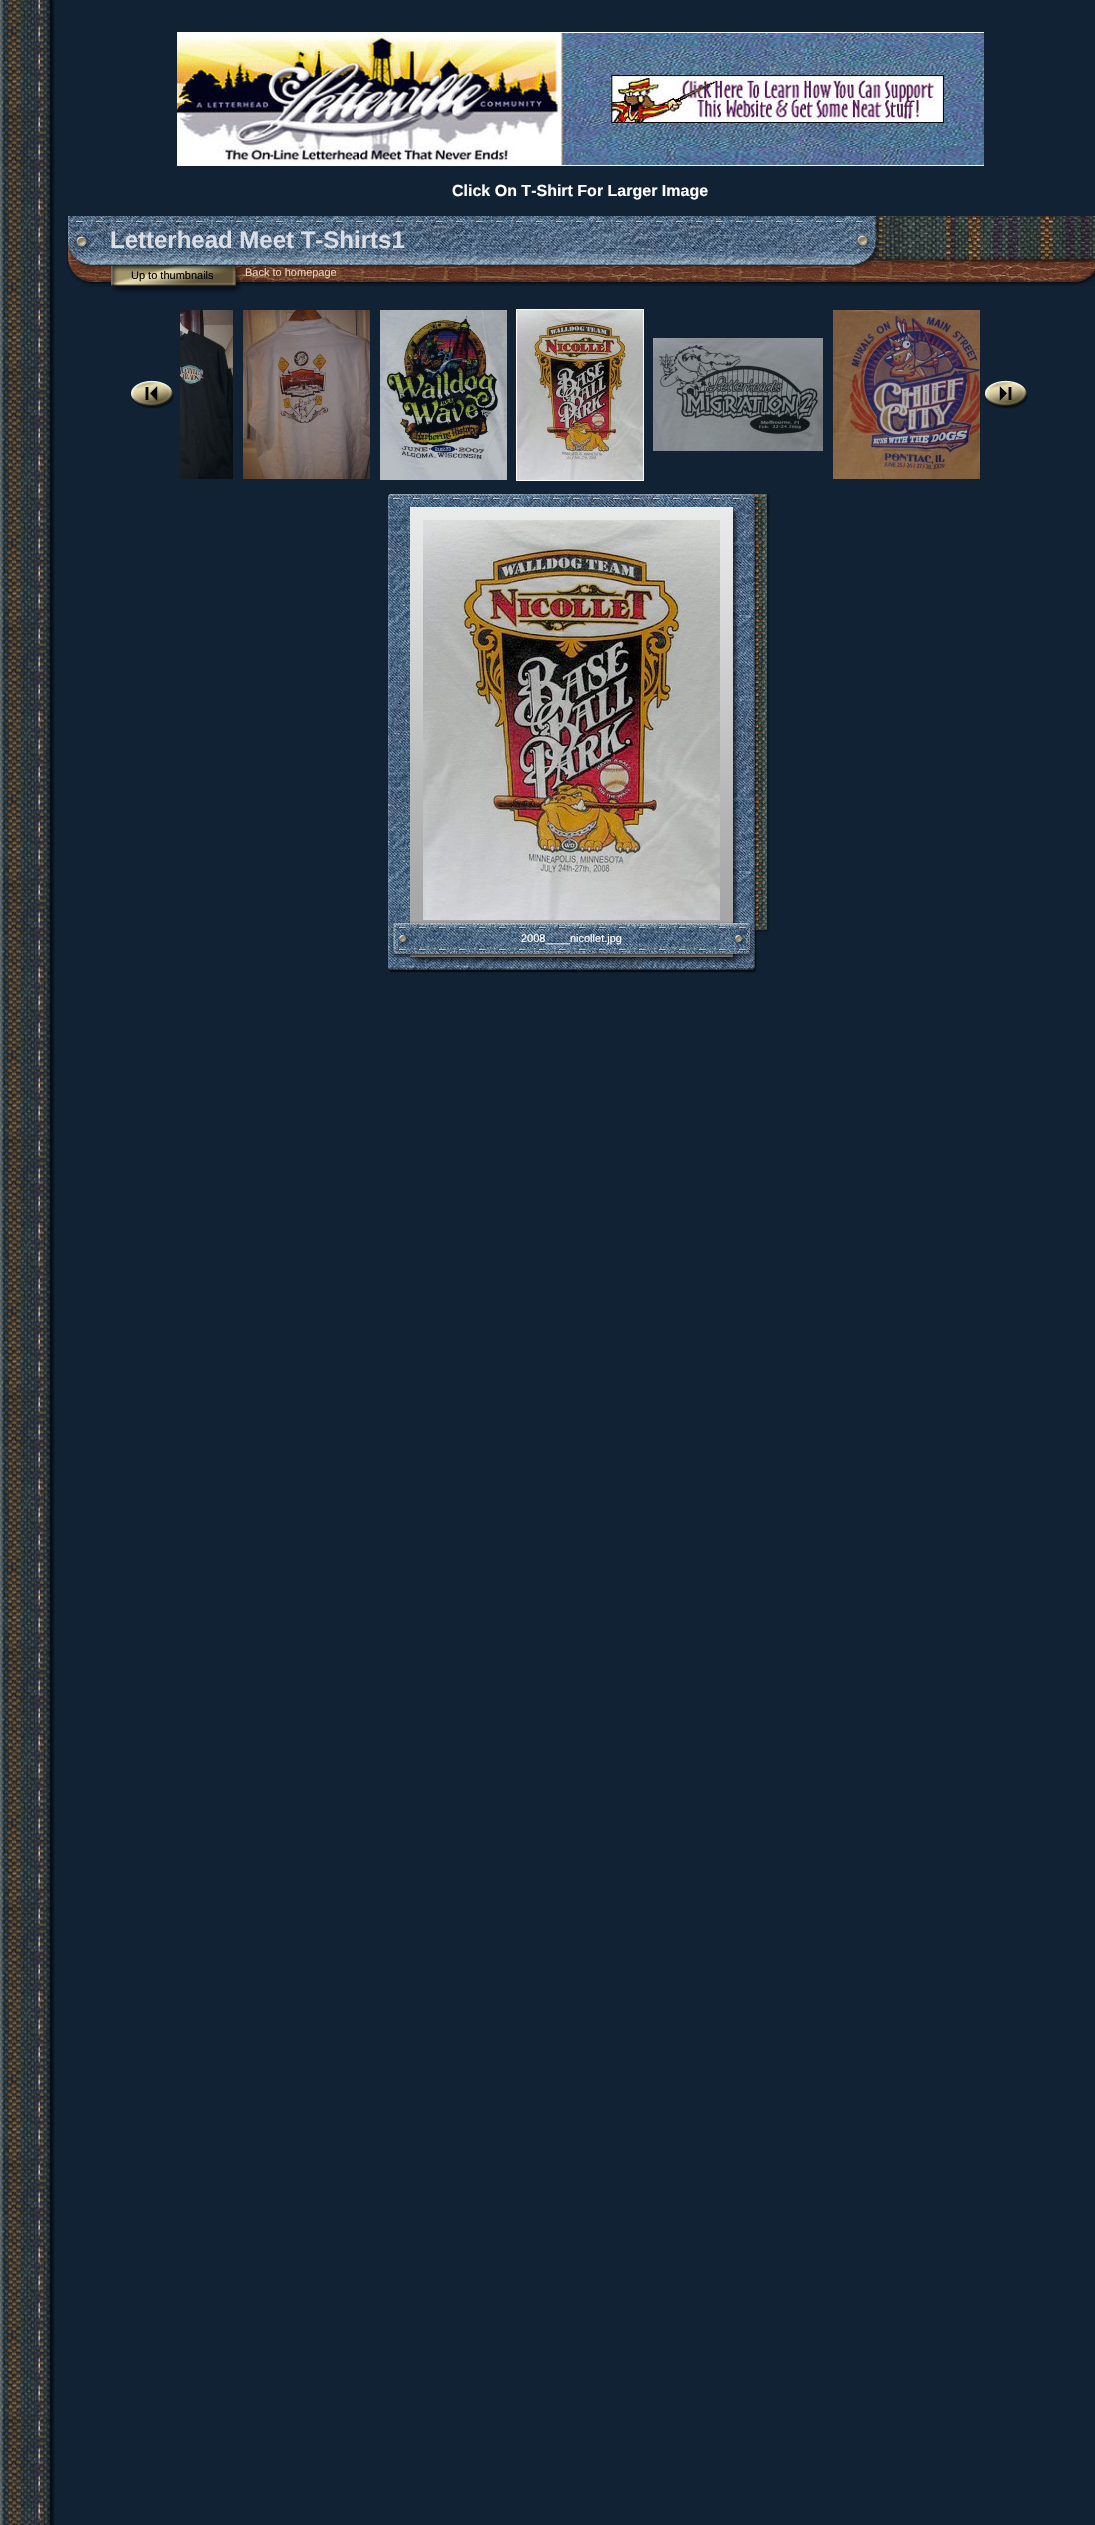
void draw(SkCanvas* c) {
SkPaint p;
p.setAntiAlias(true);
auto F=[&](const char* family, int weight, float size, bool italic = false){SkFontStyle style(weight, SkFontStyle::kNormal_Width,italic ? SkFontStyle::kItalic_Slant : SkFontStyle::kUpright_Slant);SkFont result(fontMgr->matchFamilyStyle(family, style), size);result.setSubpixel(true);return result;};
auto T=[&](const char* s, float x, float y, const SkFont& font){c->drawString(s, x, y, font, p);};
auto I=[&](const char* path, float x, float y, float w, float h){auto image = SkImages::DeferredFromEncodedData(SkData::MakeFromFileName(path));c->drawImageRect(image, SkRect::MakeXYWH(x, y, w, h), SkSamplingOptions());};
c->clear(0xff112234);
I("1.png",0,0,55,2525);
I("2.png",177,32,807,134);
auto f1 = F("Liberation Sans",700,16);
p.setColor(0xffffffff);
T("Click On T-Shirt For Larger Image",452,196,f1);
I("4.png",66,216,44,71);
I("5.png",110,216,745,50);
I("8.png",855,216,240,70);
I("3.png",68,220,802,3);
auto f2 = F("Liberation Sans",700,24);
p.setColor(0xffdadde3);
T("Letterhead Meet T-Shirts1",110,248,f2);
I("6.png",110,266,745,20);
I("7.png",110,266,134,28);
auto f3 = F("Liberation Sans",400,11);
p.setColor(0xff000000);
T("Up to thumbnails",131,279,f3);
p.setColor(0xffe4d1b1);
T("Back to homepage",245,276,f3);
I("9.png",131,380,43,29);
I("10.png",180,310,53,169);
I("11.png",243,310,127,169);
I("12.png",380,310,127,170);
p.setStroke(true);
p.setStrokeWidth(1);
p.setColor(0xffffffff);
c->drawRect(SkRect::MakeXYWH(516.5,309.5,127,171),p);
I("13.png",517,310,126,170);
I("14.png",653,338,170,113);
I("15.png",833,310,147,169);
I("16.png",985,380,43,29);
I("17.png",388,494,22,13);
I("18.png",410,494,323,13);
I("19.png",733,494,37,427);
I("20.png",733,494,37,21);
I("21.png",388,497,358,3);
I("22.png",388,507,22,414);
I("23.png",410,507,323,414);
I("24.png",423,520,297,400);
I("25.png",388,921,35,52);
I("26.png",423,921,297,52);
I("28.png",720,921,50,52);
I("27.png",394,926,354,3);
I("27.png",394,948,354,3);
p.setStroke(false);
T("2008____nicollet.jpg",521,942,f3);
}
